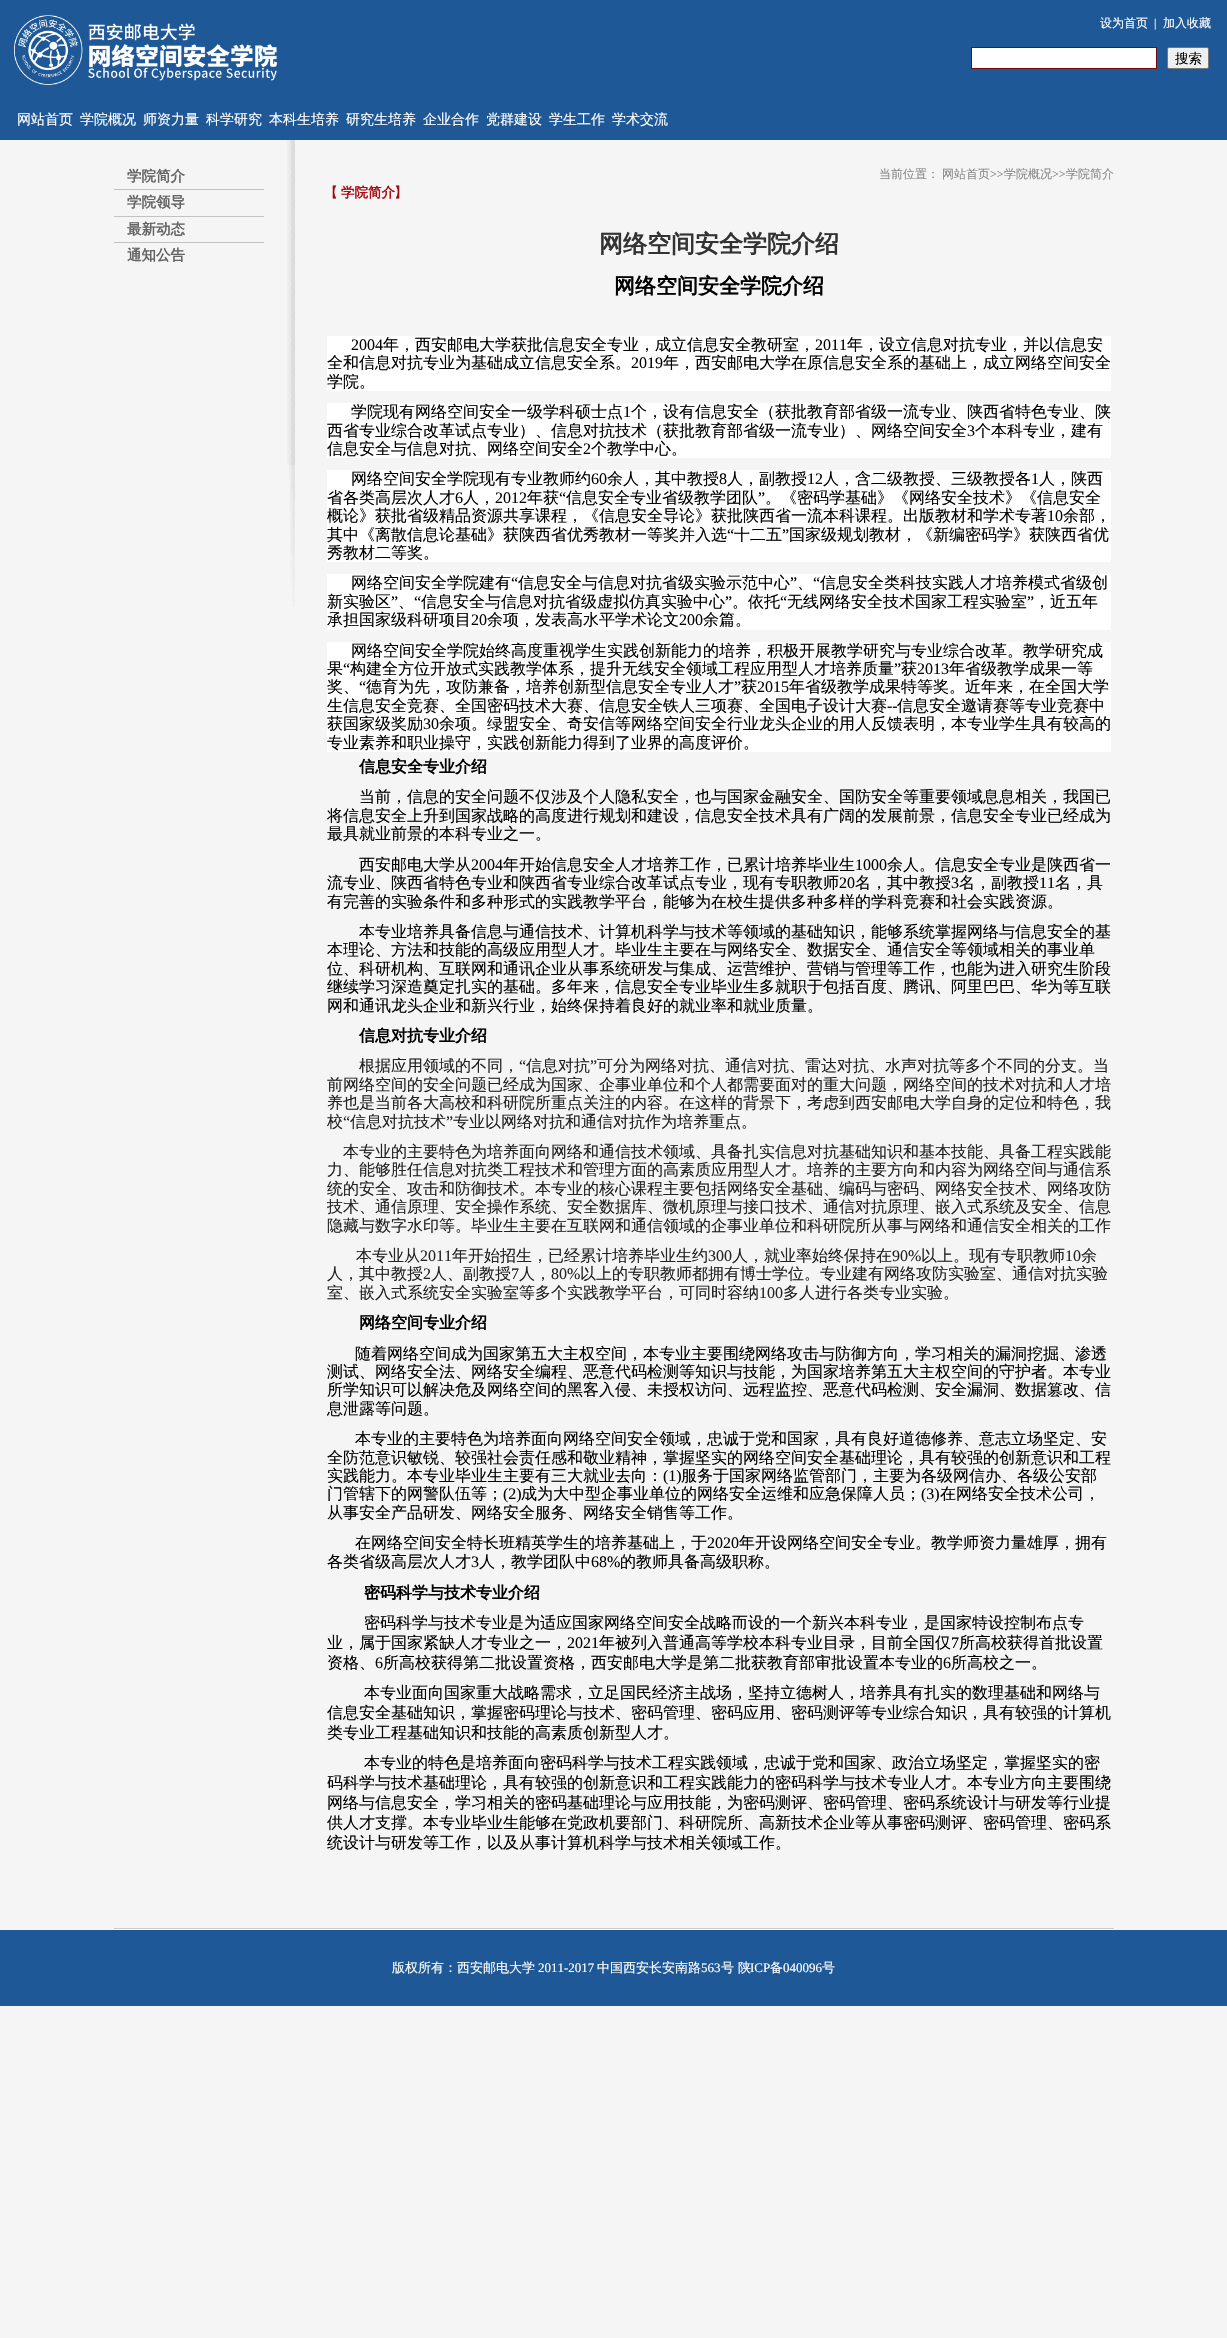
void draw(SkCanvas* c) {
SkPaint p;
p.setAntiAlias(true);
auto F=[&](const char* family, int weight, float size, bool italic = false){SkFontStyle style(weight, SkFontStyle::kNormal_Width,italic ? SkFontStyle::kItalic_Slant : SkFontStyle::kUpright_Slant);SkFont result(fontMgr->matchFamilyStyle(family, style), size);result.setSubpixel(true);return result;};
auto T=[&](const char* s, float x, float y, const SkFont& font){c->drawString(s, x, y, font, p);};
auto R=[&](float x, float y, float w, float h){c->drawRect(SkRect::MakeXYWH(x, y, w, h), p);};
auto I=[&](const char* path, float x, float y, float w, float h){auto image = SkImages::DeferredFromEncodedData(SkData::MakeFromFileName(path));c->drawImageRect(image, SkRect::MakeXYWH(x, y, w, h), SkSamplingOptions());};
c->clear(0xfff5f5f5);
p.setColor(0xff1e5897);
R(0,0,1227,140);
I("1.png",14,15,263,70);
auto f1 = F("WenQuanYi Zen Hei",500,12);
p.setColor(0xffffffff);
T("设为首页",1100,27,f1);
auto f2 = F("Liberation Serif",400,12);
T("|",1154,27,f2);
T("加入收藏",1163,27,f1);
c->drawRect(SkRect::MakeXYWH(971.5,47.5,185,21),p);
p.setStroke(true);
p.setStrokeWidth(1);
p.setColor(0xff74090f);
c->drawRect(SkRect::MakeXYWH(971.5,47.5,185,21),p);
p.setStroke(false);
p.setColor(0xffefefef);
c->drawRoundRect(SkRect::MakeXYWH(1167.5,47.5,41,21),1.5,1.5,p);
p.setStroke(true);
p.setColor(0xff767676);
c->drawRoundRect(SkRect::MakeXYWH(1167.5,47.5,41,21),1.5,1.5,p);
auto f3 = F("WenQuanYi Zen Hei",500,13.5);
p.setStroke(false);
p.setColor(0xff000000);
T("搜索",1175,63,f3);
auto f4 = F("WenQuanYi Zen Hei",500,14);
p.setColor(0xffffffff);
T("网站首页",17,124,f4);
T("学院概况",80,124,f4);
T("师资力量",143,124,f4);
T("科学研究",206,124,f4);
T("本科生培养",269,124,f4);
T("研究生培养",346,124,f4);
T("企业合作",423,124,f4);
T("党群建设",486,124,f4);
T("学生工作",549,124,f4);
T("学术交流",612,124,f4);
I("2.png",287,140,8,325);
auto f5 = F("WenQuanYi Zen Hei",700,14.5);
p.setColor(0xff656565);
T("学院简介",127,181,f5);
I("3.png",114,189,150,1);
T("学院领导",127,207,f5);
I("3.png",114,216,150,1);
T("最新动态",127,234,f5);
I("3.png",114,242,150,1);
T("通知公告",127,260,f5);
I("4.png",289,465,6,142);
p.setColor(0xff888888);
T("当前位置：",879,178,f1);
T("网站首页",942,178,f1);
T(">>",990,178,f2);
T("学院概况",1004,178,f1);
T(">>",1052,178,f2);
T("学院简介",1066,178,f1);
p.setColor(0xff990e15);
T("【",324,197,f4);
auto f6 = F("WenQuanYi Zen Hei",700,13.5);
p.setColor(0xffa90e15);
T("学院简介",341,197,f6);
p.setColor(0xff990e15);
T("】",394,197,f4);
auto f7 = F("WenQuanYi Zen Hei",700,24);
p.setColor(0xff333333);
T("网络空间安全学院介绍",599,252,f7);
auto f8 = F("WenQuanYi Zen Hei",700,21);
p.setColor(0xff000000);
T("网络空间安全学院介绍",614,293,f8);
p.setColor(0xffffffff);
R(327,336,784,55);
auto f9 = F("Liberation Serif",400,16);
p.setColor(0xff000000);
T("2004",351,350,f9);
auto f10 = F("WenQuanYi Zen Hei",500,16);
T("年，西安邮电大学获批信息安全专业，成立信息安全教研室，",383,350,f10);
T("2011",815,350,f9);
T("年，设立信息对抗专业，并以信息安",847,350,f10);
T("全和信息对抗专业为基础成立信息安全系。",327,368,f10);
T("2019",631,368,f9);
T("年，西安邮电大学在原信息安全系的基础上，成立网络空间安全",663,368,f10);
T("学院。",327,387,f10);
p.setColor(0xffffffff);
R(327,403,784,55);
p.setColor(0xff000000);
T("学院现有网络空间安全一级学科硕士点",351,417,f10);
T("1",623,417,f9);
T("个，设有信息安全（获批教育部省级一流专业、陕西省特色专业、陕",631,417,f10);
T("西省专业综合改革试点专业）、信息对抗技术（获批教育部省级一流专业）、网络空间安全",327,436,f10);
T("3",967,436,f9);
T("个本科专业，建有",975,436,f10);
T("信息安全与信息对抗、网络空间安全",327,454,f10);
T("2",583,454,f9);
T("个教学中心。",591,454,f10);
p.setColor(0xffffffff);
R(327,470,784,92);
p.setColor(0xff000000);
T("网络空间安全学院现有专业教师约",351,484,f10);
T("60",591,484,f9);
T("余人，其中教授",607,484,f10);
T("8",719,484,f9);
T("人，副教授",727,484,f10);
T("12",807,484,f9);
T("人，含二级教授、三级教授各",823,484,f10);
T("1",1031,484,f9);
T("人，陕西",1039,484,f10);
T("省各类高层次人才",327,503,f10);
T("6",455,503,f9);
T("人，",463,503,f10);
T("2012",495,503,f9);
T("年获",527,503,f10);
T("“",559,503,f9);
T("信息安全专业省级教学团队",566,503,f10);
T("”",758,503,f9);
T("。《密码学基础》《网络安全技术》《信息安全",765,503,f10);
T("概论》获批省级精品资源共享课程，《信息安全导论》获批陕西省一流本科课程。出版教材和学术专著",327,521,f10);
T("10",1047,521,f9);
T("余部，",1063,521,f10);
T("其中《离散信息论基础》获陕西省优秀教材一等奖并入选",327,540,f10);
T("“",727,540,f9);
T("十二五",734,540,f10);
T("”",782,540,f9);
T("国家级规划教材，《新编密码学》获陕西省优",789,540,f10);
T("秀教材二等奖。",327,558,f10);
p.setColor(0xffffffff);
R(327,574,784,56);
p.setColor(0xff000000);
T("网络空间安全学院建有",351,588,f10);
T("“",511,588,f9);
T("信息安全与信息对抗省级实验示范中心",518,588,f10);
T("”",790,588,f9);
T("“",813,588,f9);
T("信息安全类科技实践人才培养模式省级创",820,588,f10);
T("、",797,588,f10);
T("新实验区",327,607,f10);
T("”",391,607,f9);
T("“",414,607,f9);
T("信息安全与信息对抗省级虚拟仿真实验中心",421,607,f10);
T("”",725,607,f9);
T("。依托",732,607,f10);
T("“",780,607,f9);
T("无线网络安全技术国家工程实验室",787,607,f10);
T("”",1027,607,f9);
T("，近五年",1034,607,f10);
T("、",398,607,f10);
T("承担国家级科研项目",327,625,f10);
T("20",471,625,f9);
T("余项，发表高水平学术论文",487,625,f10);
T("200",679,625,f9);
T("余篇。",703,625,f10);
p.setColor(0xffffffff);
R(327,642,784,110);
p.setColor(0xff000000);
T("网络空间安全学院始终高度重视学生实践创新能力的培养，积极开展教学研究与专业综合改革。教学研究成",351,656,f10);
T("果",327,674,f10);
T("“",343,674,f9);
T("构建全方位开放式实践教学体系，提升无线安全领域工程应用型人才培养质量",350,674,f10);
T("”",894,674,f9);
T("获",901,674,f10);
T("2013",917,674,f9);
T("年省级教学成果一等",949,674,f10);
T("奖、",327,692,f10);
T("“",359,692,f9);
T("德育为先，攻防兼备，培养创新型信息安全专业人才",366,692,f10);
T("”",734,692,f9);
T("获",741,692,f10);
T("2015",757,692,f9);
T("年省级教学成果特等奖。近年来，在全国大学",789,692,f10);
T("生信息安全竞赛、全国密码技术大赛、信息安全铁人三项赛、全国电子设计大赛",327,711,f10);
T("--",887,711,f9);
T("信息安全邀请赛等专业竞赛中",897,711,f10);
T("获国家级奖励",327,729,f10);
T("30",423,729,f9);
T("余项。绿盟安全、奇安信等网络空间安全行业龙头企业的用人反馈表明，本专业学生具有较高的",439,729,f10);
T("专业素养和职业操守，实践创新能力得到了业界的高度评价。",327,748,f10);
auto f11 = F("WenQuanYi Zen Hei",700,16);
T("信息安全专业介绍",359,772,f11);
T("当前，信息的安全问题不仅涉及个人隐私安全，也与国家金融安全、国防安全等重要领域息息相关，我国已",359,802,f10);
T("将信息安全上升到国家战略的高度进行规划和建设，信息安全技术具有广阔的发展前景，信息安全专业已经成为",327,821,f10);
T("最具就业前景的本科专业之一。",327,839,f10);
T("西安邮电大学从",359,870,f10);
T("2004",471,870,f9);
T("年开始信息安全人才培养工作，已累计培养毕业生",503,870,f10);
T("1000",855,870,f9);
T("余人。信息安全专业是陕西省一",887,870,f10);
T("流专业、陕西省特色专业和陕西省专业综合改革试点专业，现有专职教师",327,888,f10);
T("20",839,888,f9);
T("名，其中教授",855,888,f10);
T("3",951,888,f9);
T("名，副教授",959,888,f10);
T("11",1039,888,f9);
T("名，具",1055,888,f10);
T("有完善的实验条件和多种形式的实践教学平台，能够为在校生提供多种多样的学科竞赛和社会实践资源。",327,907,f10);
T("本专业培养具备信息与通信技术、计算机科学与技术等领域的基础知识，能够系统掌握网络与信息安全的基",359,937,f10);
T("本理论、方法和技能的高级应用型人才。毕业生主要在与网络安全、数据安全、通信安全等领域相关的事业单",327,955,f10);
T("位、科研机构、互联网和通讯企业从事系统研发与集成、运营维护、营销与管理等工作，也能为进入研究生阶段",327,974,f10);
T("继续学习深造奠定扎实的基础。多年来，信息安全专业毕业生多就职于包括百度、腾讯、阿里巴巴、华为等互联",327,992,f10);
T("网和通讯龙头企业和新兴行业，始终保持着良好的就业率和就业质量。",327,1011,f10);
T("信息对抗专业介绍",359,1041,f11);
p.setColor(0xff222222);
T("根据应用领域的不同，",359,1071,f10);
T("“",519,1071,f9);
T("信息对抗",526,1071,f10);
T("”",590,1071,f9);
T("可分为网络对抗、通信对抗、雷达对抗、水声对抗等多个不同的分支。当",597,1071,f10);
T("前网络空间的安全问题已经成为国家、企事业单位和个人都需要面对的重大问题，网络空间的技术对抗和人才培",327,1090,f10);
T("养也是当前各大高校和科研院所重点关注的内容。在这样的背景下，考虑到西安邮电大学自身的定位和特色，我",327,1108,f10);
T("校",327,1127,f10);
T("“",343,1127,f9);
T("信息对抗技术",350,1127,f10);
T("”",446,1127,f9);
T("专业以网络对抗和通信对抗作为培养重点。",453,1127,f10);
T("本专业的主要特色为培养面向网络和通信技术领域、具备扎实信息对抗基础知识和基本技能、具备工程实践能",343,1157,f10);
T("力、能够胜任信息对抗类工程技术和管理方面的高素质应用型人才。培养的主要方向和内容为网络空间与通信系",327,1175,f10);
T("统的安全、攻击和防御技术。本专业的核心课程主要包括网络安全基础、编码与密码、网络安全技术、网络攻防",327,1194,f10);
T("技术、通信原理、安全操作系统、安全数据库、微机原理与接口技术、通信对抗原理、嵌入式系统及安全、信息",327,1212,f10);
T("隐藏与数字水印等。毕业生主要在互联网和通信领域的企事业单位和科研院所从事与网络和通信安全相关的工作",327,1231,f10);
T("本专业从",356,1261,f10);
T("2011",420,1261,f9);
T("年开始招生，已经累计培养毕业生约",452,1261,f10);
T("300",708,1261,f9);
T("人，就业率始终保持在",732,1261,f10);
T("90%",892,1261,f9);
T("以上。现有专职教师",921,1261,f10);
T("10",1065,1261,f9);
T("余",1081,1261,f10);
T("人，其中教授",327,1279,f10);
T("2",423,1279,f9);
T("人、副教授",431,1279,f10);
T("7",511,1279,f9);
T("人，",519,1279,f10);
T("80%",551,1279,f9);
T("以上的专职教师都拥有博士学位。专业建有网络攻防实验室、通信对抗实验",580,1279,f10);
T("室、嵌入式系统安全实验室等多个实践教学平台，可同时容纳",327,1298,f10);
T("100",759,1298,f9);
T("多人进行各类专业实验。",783,1298,f10);
p.setColor(0xff000000);
T("网络空间专业介绍",359,1328,f11);
T("随着网络空间成为国家第五大主权空间，本专业主要围绕网络攻击与防御方向，学习相关的漏洞挖掘、渗透",355,1359,f10);
T("测试、网络安全法、网络安全编程、恶意代码检测等知识与技能，为国家培养第五大主权空间的守护者。本专业",327,1377,f10);
T("所学知识可以解决危及网络空间的黑客入侵、未授权访问、远程监控、恶意代码检测、安全漏洞、数据篡改、信",327,1395,f10);
T("息泄露等问题。",327,1414,f10);
T("本专业的主要特色为培养面向网络空间安全领域，忠诚于党和国家，具有良好道德修养、意志立场坚定、安",355,1444,f10);
T("全防范意识敏锐、较强社会责任感和敬业精神，掌握坚实的网络空间安全基础理论，具有较强的创新意识和工程",327,1463,f10);
T("实践能力。本专业毕业生主要有三大就业去向：",327,1481,f10);
T("(1)",663,1481,f9);
T("服务于国家网络监管部门，主要为各级网信办、各级公安部",681,1481,f10);
T("门管辖下的网警队伍等；",327,1499,f10);
T("(2)",503,1499,f9);
T("成为大中型企事业单位的网络安全运维和应急保障人员；",521,1499,f10);
T("(3)",921,1499,f9);
T("在网络安全技术公司，",940,1499,f10);
T("从事安全产品研发、网络安全服务、网络安全销售等工作。",327,1518,f10);
T("在网络空间安全特长班精英学生的培养基础上，于",355,1548,f10);
T("2020",707,1548,f9);
T("年开设网络空间安全专业。教学师资力量雄厚，拥有",739,1548,f10);
T("各类省级高层次人才",327,1567,f10);
T("3",471,1567,f9);
T("人，教学团队中",479,1567,f10);
T("68%",591,1567,f9);
T("的教师具备高级职称。",620,1567,f10);
T("密码科学与技术专业介绍",364,1598,f11);
T("密码科学与技术专业是为适应国家网络空间安全战略而设的一个新兴本科专业，是国家特设控制布点专",364,1628,f10);
T("业，属于国家紧缺人才专业之一，",327,1648,f10);
T("2021",567,1648,f9);
T("年被列入普通高等学校本科专业目录，目前全国仅",599,1648,f10);
T("7",951,1648,f9);
T("所高校获得首批设置",959,1648,f10);
T("资格、",327,1668,f10);
T("6",375,1668,f9);
T("所高校获得第二批设置资格，西安邮电大学是第二批获教育部审批设置本专业的",383,1668,f10);
T("6",943,1668,f9);
T("所高校之一。",951,1668,f10);
T("本专业面向国家重大战略需求，立足国民经济主战场，坚持立德树人，培养具有扎实的数理基础和网络与",364,1698,f10);
T("信息安全基础知识，掌握密码理论与技术、密码管理、密码应用、密码测评等专业综合知识，具有较强的计算机",327,1718,f10);
T("类专业工程基础知识和技能的高素质创新型人才。",327,1738,f10);
T("本专业的特色是培养面向密码科学与技术工程实践领域，忠诚于党和国家、政治立场坚定，掌握坚实的密",364,1768,f10);
T("码科学与技术基础理论，具有较强的创新意识和工程实践能力的密码科学与技术专业人才。本专业方向主要围绕",327,1788,f10);
T("网络与信息安全，学习相关的密码基础理论与应用技能，为密码测评、密码管理、密码系统设计与研发等行业提",327,1808,f10);
T("供人才支撑。本专业毕业生能够在党政机要部门、科研院所、高新技术企业等从事密码测评、密码管理、密码系",327,1828,f10);
T("统设计与研发等工作，以及从事计算机科学与技术相关领域工作。",327,1848,f10);
I("5.png",114,1928,1000,2);
p.setColor(0xff1e5897);
R(0,1930,1227,76);
auto f12 = F("WenQuanYi Zen Hei",500,13);
p.setColor(0xffffffff);
T("版权所有：西安邮电大学",392,1972,f12);
auto f13 = F("Liberation Serif",400,13);
T("2011-2017",538,1972,f13);
T("中国西安长安南路",597,1972,f12);
T("563",701,1972,f13);
T("号 陕",721,1972,f12);
T("ICP",750,1972,f13);
T("备",770,1972,f12);
T("040096",783,1972,f13);
T("号",822,1972,f12);
}
